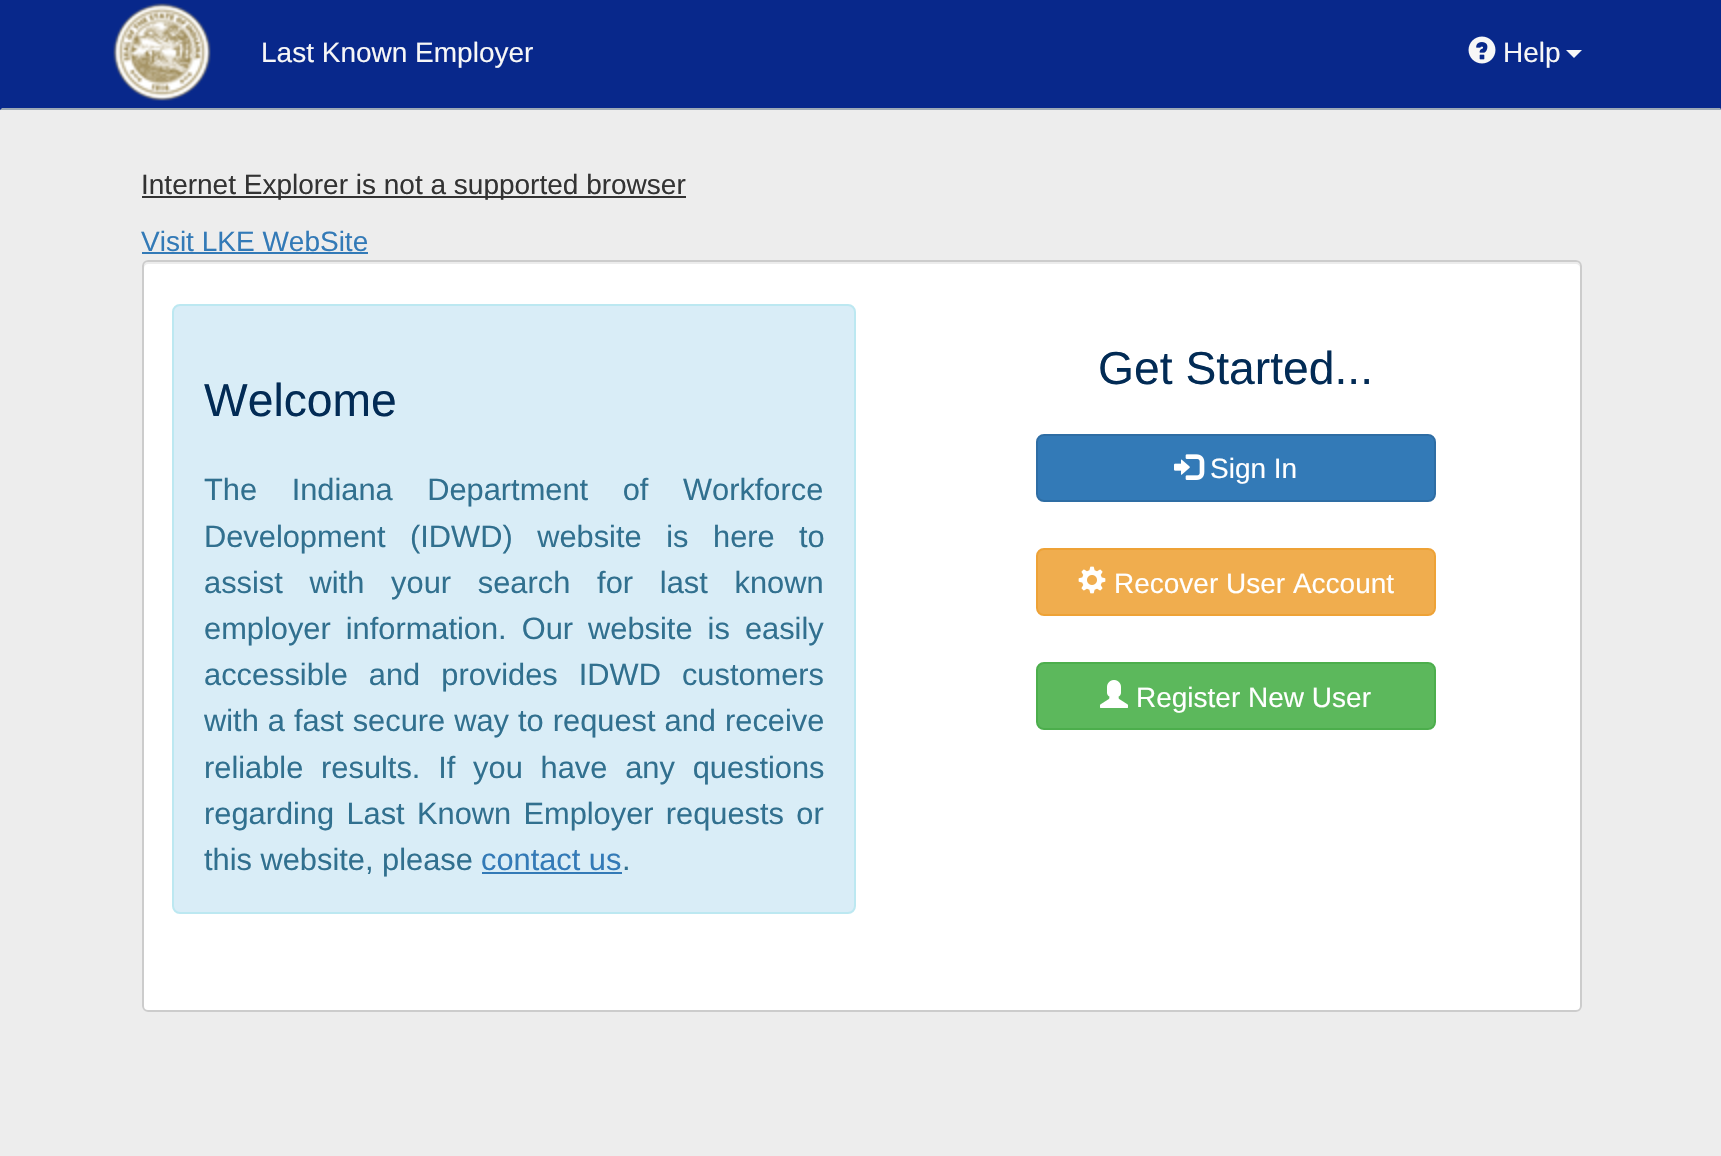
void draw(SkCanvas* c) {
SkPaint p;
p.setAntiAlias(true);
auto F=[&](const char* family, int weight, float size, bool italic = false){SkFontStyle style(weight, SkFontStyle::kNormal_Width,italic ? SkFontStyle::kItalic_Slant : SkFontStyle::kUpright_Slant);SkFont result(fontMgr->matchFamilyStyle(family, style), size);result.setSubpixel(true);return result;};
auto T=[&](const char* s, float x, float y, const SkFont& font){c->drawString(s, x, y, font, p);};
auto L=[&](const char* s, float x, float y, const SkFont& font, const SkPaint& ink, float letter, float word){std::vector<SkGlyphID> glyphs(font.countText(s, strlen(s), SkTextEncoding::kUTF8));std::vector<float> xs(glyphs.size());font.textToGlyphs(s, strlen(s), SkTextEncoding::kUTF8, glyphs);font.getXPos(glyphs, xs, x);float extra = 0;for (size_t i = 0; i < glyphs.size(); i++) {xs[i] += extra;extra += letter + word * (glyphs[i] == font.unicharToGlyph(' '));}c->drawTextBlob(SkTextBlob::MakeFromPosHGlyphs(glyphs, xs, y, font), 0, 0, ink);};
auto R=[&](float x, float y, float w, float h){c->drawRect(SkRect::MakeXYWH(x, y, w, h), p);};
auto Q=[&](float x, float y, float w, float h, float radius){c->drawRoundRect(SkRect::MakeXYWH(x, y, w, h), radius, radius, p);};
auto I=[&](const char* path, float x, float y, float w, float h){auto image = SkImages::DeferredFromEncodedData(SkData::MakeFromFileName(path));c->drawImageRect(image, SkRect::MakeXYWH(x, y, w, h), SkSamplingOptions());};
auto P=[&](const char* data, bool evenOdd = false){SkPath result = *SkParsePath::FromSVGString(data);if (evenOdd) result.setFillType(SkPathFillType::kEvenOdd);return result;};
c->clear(0xffededed);
p.setColor(0xff08288b);
R(0,0,1721,110);
p.setColor(0xff9ca9b5);
c->drawPath(P("M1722 110h-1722l2-2h1718z"),p);
I("1.png",113,3,98,98);
auto f1 = F("Liberation Sans",400,28);
p.setColor(0xfff7f7f7);
T("Last Known Employer",261,62,f1);
I("2.png",1468,36,28,28);
T("Help",1503,62,f1);
c->drawPath(P("M1566 50h16l-8 8z"),p);
p.setColor(0xff333333);
R(142,196,544,2);
T("Internet Explorer is not a supported browser",141,194,f1);
p.setColor(0xff337ab7);
T("Visit LKE WebSite",141,251,f1);
R(142,252,226,2);
p.setColor(0xffffffff);
Q(142,260,1440,752,6);
p.setColor(0xffececec);
c->drawPath(P("M148 264h1428c2 0 4 2 4 4c0-3 0-6-4-6h-1428c-4 0-4 3-4 6c0-2 2-4 4-4z"),p);
p.setStroke(true);
p.setStrokeWidth(2);
p.setColor(0xffcccccc);
c->drawRoundRect(SkRect::MakeXYWH(143,261,1438,750),5,5,p);
p.setStroke(false);
p.setColor(0xffd9edf7);
c->drawRoundRect(SkRect::MakeXYWH(173,305,682,608),7,7,p);
p.setStroke(true);
p.setColor(0xffbce8f1);
c->drawRoundRect(SkRect::MakeXYWH(173,305,682,608),7,7,p);
auto f2 = F("Liberation Sans",400,46.25);
p.setStroke(false);
p.setColor(0xff022b55);
T("Welcome",204,416,f2);
auto f3 = F("Liberation Sans",400,30.8);
p.setColor(0xff31708f);
L("The Indiana Department of Workforce",204,500,f3,p,0,26);
L("Development (IDWD) website is here",204,547,f3,p,0,16);
T("to",799,547,f3);
L("assist with your search for last known",204,593,f3,p,0,18.25);
L("employer information. Our website is easily",204,639,f3,p,0,6.5);
L("accessible and provides IDWD customers",204,685,f3,p,0,12.5);
L("with a fast secure way to request and receive",204,731,f3,p,0,.5);
L("reliable results. If you have any questions",204,778,f3,p,0,9.25);
L("regarding Last Known Employer requests or",204,824,f3,p,0,3.75);
T("this website, please",204,870,f3);
p.setColor(0xff337ab7);
T("contact us",481,870,f3);
R(482,872,140,2);
p.setColor(0xff31708f);
T(".",622,870,f3);
p.setColor(0xff022b55);
T("Get Started...",1098,384,f2);
p.setColor(0xff337ab7);
c->drawRoundRect(SkRect::MakeXYWH(1037,435,398,66),7,7,p);
p.setStroke(true);
p.setColor(0xff2e6da4);
c->drawRoundRect(SkRect::MakeXYWH(1037,435,398,66),7,7,p);
I("3.png",1174,454,31,26);
p.setStroke(false);
p.setColor(0xffffffff);
T("Sign In",1210,478,f1);
p.setColor(0xfff0ad4e);
c->drawRoundRect(SkRect::MakeXYWH(1037,549,398,66),7,7,p);
p.setStroke(true);
p.setColor(0xffeea236);
c->drawRoundRect(SkRect::MakeXYWH(1037,549,398,66),7,7,p);
I("4.png",1078,566,28,28);
p.setStroke(false);
p.setColor(0xffffffff);
T("Recover User Account",1114,593,f1);
p.setColor(0xff5cb85c);
c->drawRoundRect(SkRect::MakeXYWH(1037,663,398,66),7,7,p);
p.setStroke(true);
p.setColor(0xff4cae4c);
c->drawRoundRect(SkRect::MakeXYWH(1037,663,398,66),7,7,p);
I("5.png",1100,680,28,28);
p.setStroke(false);
p.setColor(0xffffffff);
T("Register New User",1136,707,f1);
}
